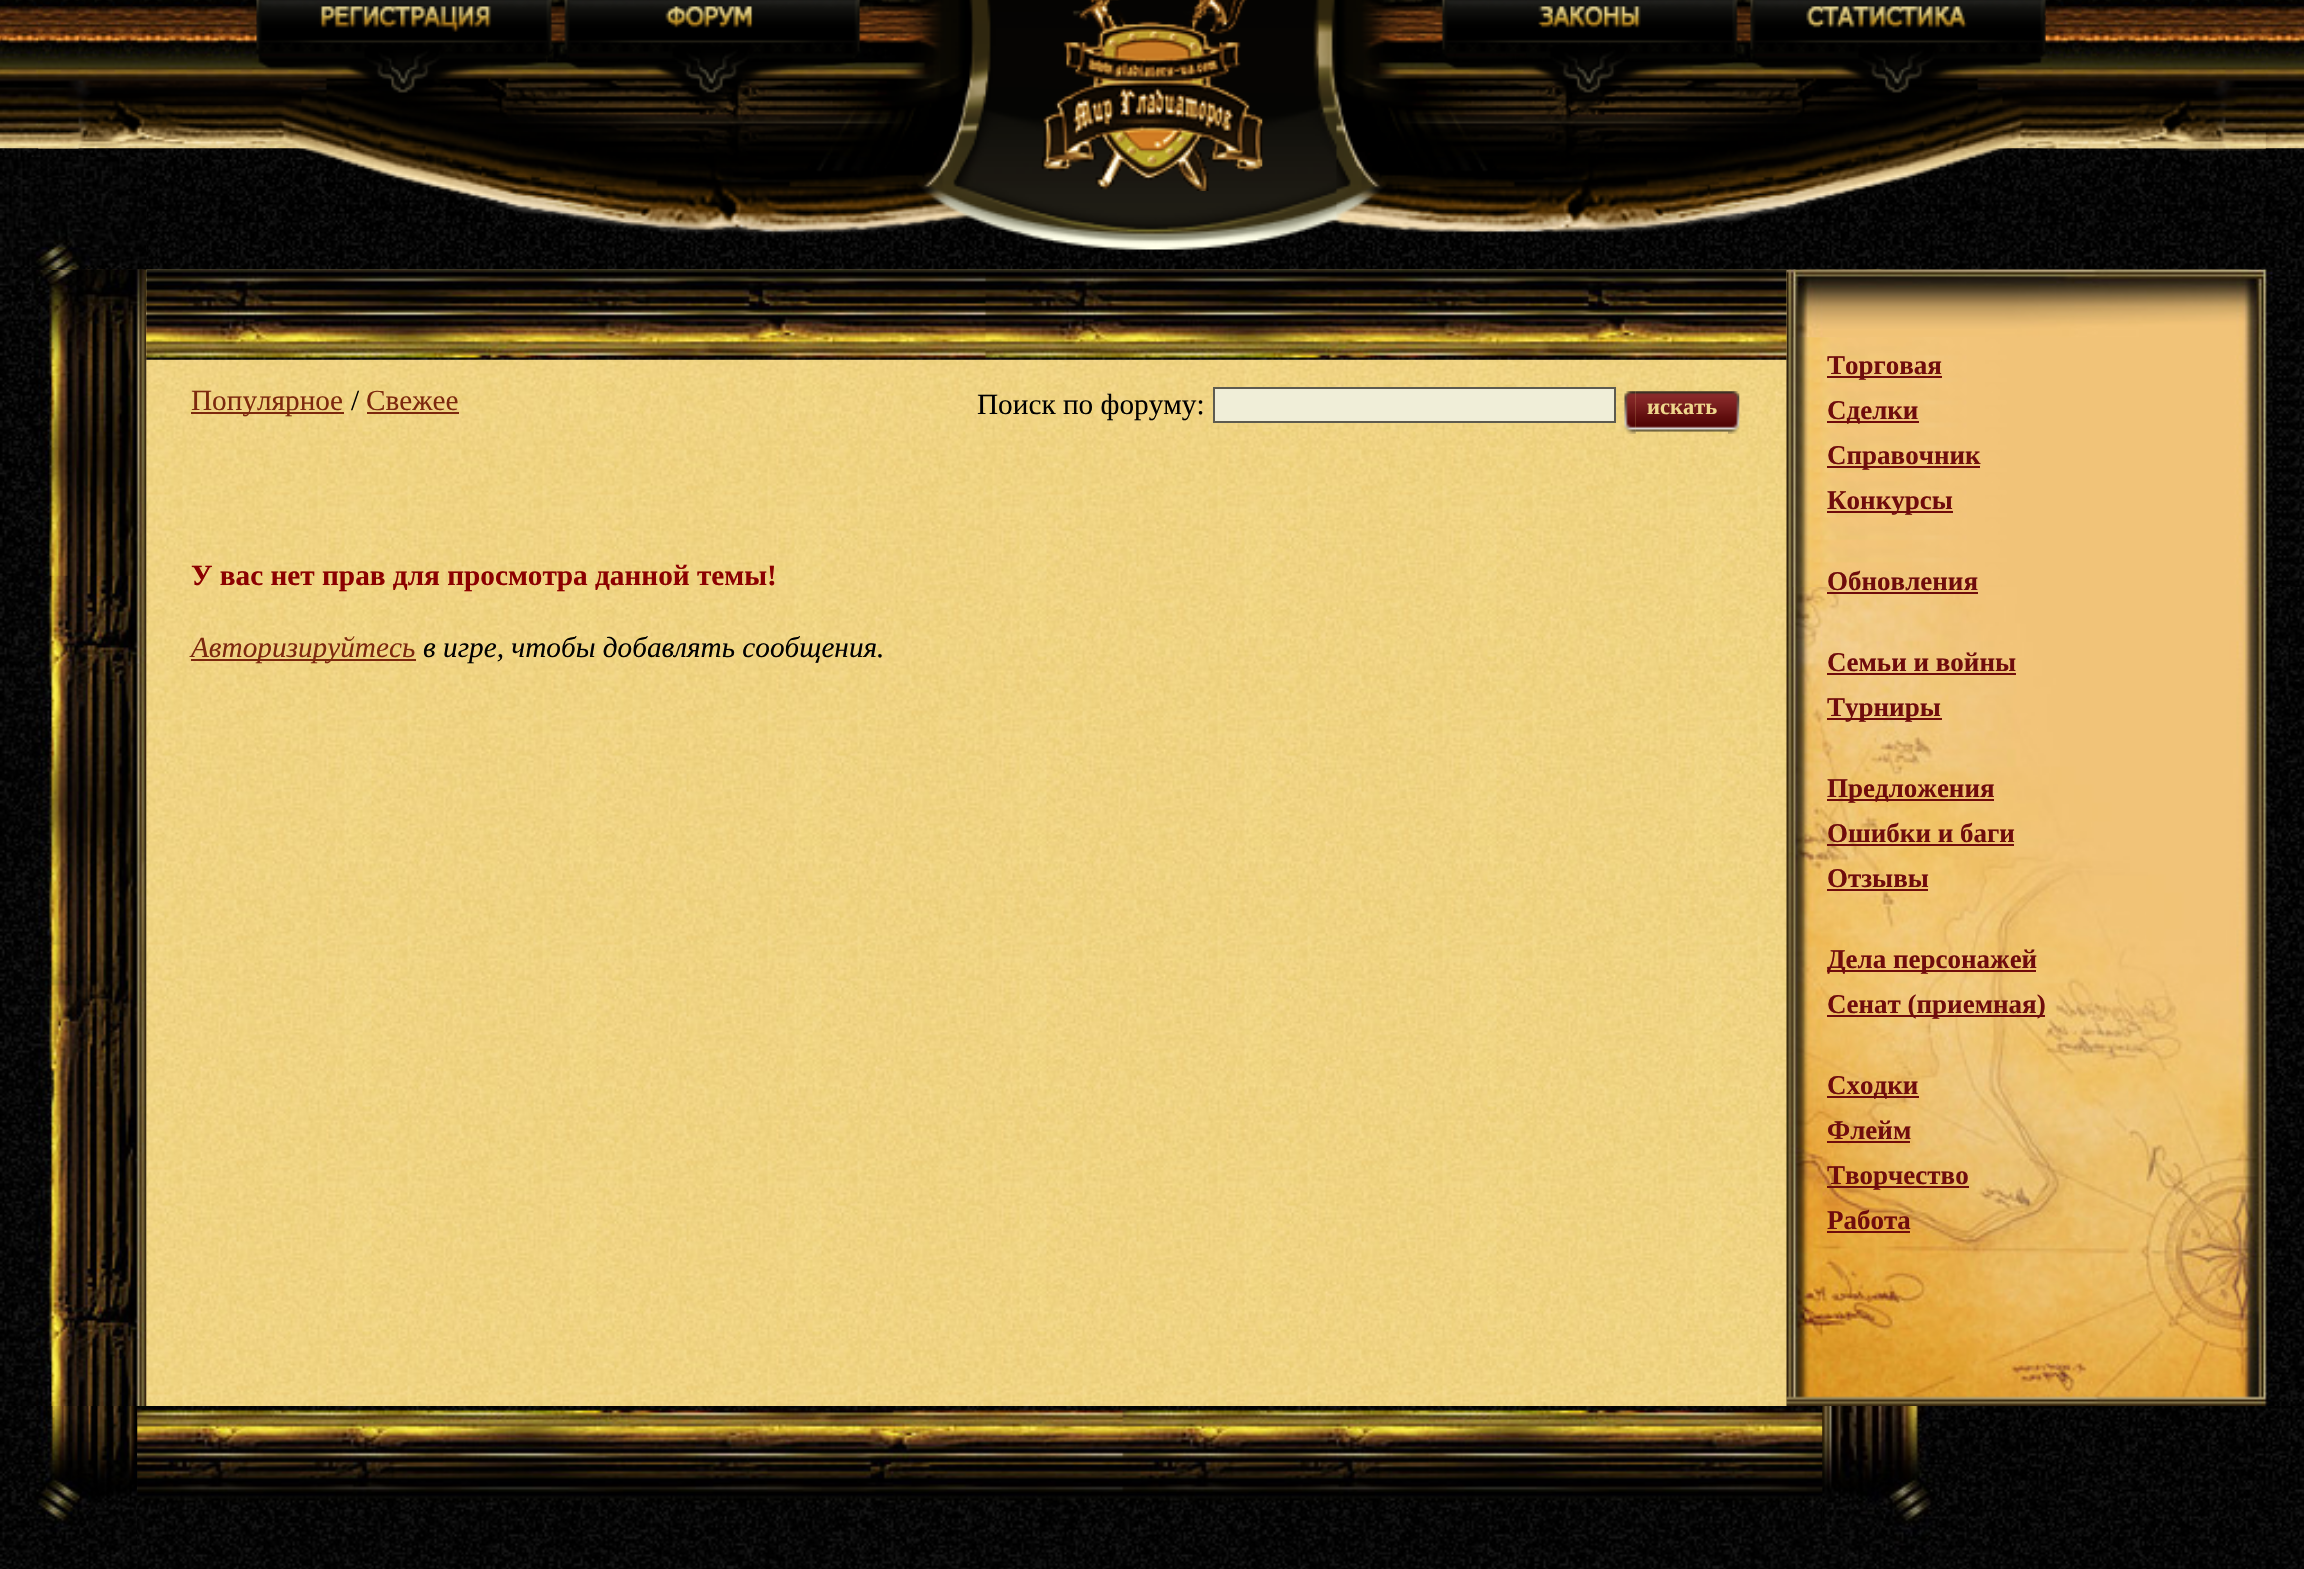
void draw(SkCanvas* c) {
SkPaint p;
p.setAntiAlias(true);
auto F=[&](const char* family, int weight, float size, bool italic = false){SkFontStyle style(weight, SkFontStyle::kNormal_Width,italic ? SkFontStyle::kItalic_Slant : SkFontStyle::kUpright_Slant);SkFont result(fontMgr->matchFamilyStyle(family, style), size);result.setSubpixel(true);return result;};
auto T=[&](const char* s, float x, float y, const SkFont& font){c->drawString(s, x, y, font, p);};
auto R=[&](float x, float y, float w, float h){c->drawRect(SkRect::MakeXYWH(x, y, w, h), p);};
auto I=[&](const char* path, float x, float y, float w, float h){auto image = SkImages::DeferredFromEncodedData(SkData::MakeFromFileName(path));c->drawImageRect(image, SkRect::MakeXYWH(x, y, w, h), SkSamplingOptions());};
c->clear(0xffffffff);
I("1.png",0,148,2304,1421);
I("2.png",0,0,2304,149);
I("9.png",0,157,147,113);
I("3.png",38,0,2228,250);
I("4.png",256,0,296,93);
I("5.png",564,0,297,113);
I("6.png",1441,0,297,112);
I("7.png",1750,0,296,100);
I("8.png",1041,0,222,191);
I("10.png",0,269,147,1137);
I("11.png",0,269,147,307);
I("17.png",1786,269,147,1137);
I("18.png",1786,269,518,1137);
I("19.png",1786,269,518,69);
I("20.png",1786,587,518,819);
I("12.png",146,269,1641,1137);
I("13.png",146,269,1641,91);
p.setColor(0xff7c280e);
R(191,412,153,2);
auto f1 = F("Liberation Serif",400,29.25);
T("Популярное",191,410,f1);
p.setColor(0xff000000);
T("/",351,410,f1);
p.setColor(0xff7c280e);
T("Свежее",366,410,f1);
R(367,412,92,2);
p.setColor(0xff000000);
T("Поиск по форуму:",977,414,f1);
p.setColor(0xfff0eed8);
c->drawRect(SkRect::MakeXYWH(1214,388,401,34),p);
p.setStroke(true);
p.setStrokeWidth(2);
p.setColor(0xff5d5b50);
c->drawRect(SkRect::MakeXYWH(1214,388,401,34),p);
I("14.png",1635,391,93,41);
I("15.png",1624,391,12,43);
auto f2 = F("Liberation Serif",700,22.5);
p.setStroke(false);
p.setColor(0xffeed68c);
T("искать",1647,414,f2);
I("16.png",1728,391,12,43);
auto f3 = F("Liberation Serif",700,29.25);
p.setColor(0xff8b0000);
T("У вас нет прав для просмотра данной темы!",191,585,f3);
p.setColor(0xff7c280e);
R(191,659,225,2);
auto f4 = F("Liberation Serif",400,29.25,true);
T("Авторизируйтесь",191,657,f4);
p.setColor(0xff000000);
T("в игре, чтобы добавлять сообщения.",423,657,f4);
p.setColor(0xff6f0c0c);
R(1827,376,115,2);
auto f5 = F("Liberation Serif",700,27);
T("Торговая",1827,374,f5);
R(1827,421,92,2);
T("Сделки",1827,419,f5);
R(1827,466,153,2);
T("Справочник",1827,464,f5);
R(1827,511,126,2);
T("Конкурсы",1827,509,f5);
T("Обновления",1827,590,f5);
R(1827,592,151,2);
T("Семьи и войны",1827,671,f5);
R(1827,673,189,2);
R(1827,718,115,2);
T("Турниры",1827,716,f5);
R(1827,799,167,2);
T("Предложения",1827,797,f5);
T("Ошибки и баги",1827,842,f5);
R(1827,844,187,2);
T("Отзывы",1827,887,f5);
R(1827,889,101,2);
R(1827,970,209,2);
T("Дела персонажей",1827,968,f5);
R(1827,1015,218,2);
T("Сенат (приемная)",1827,1013,f5);
R(1827,1096,92,2);
T("Сходки",1827,1094,f5);
T("Флейм",1827,1139,f5);
R(1827,1141,83,2);
R(1827,1186,142,2);
T("Творчество",1827,1184,f5);
T("Работа",1827,1229,f5);
R(1827,1231,83,2);
I("21.png",0,1406,138,163);
I("22.png",137,1406,1686,163);
I("23.png",1822,1406,147,163);
}
